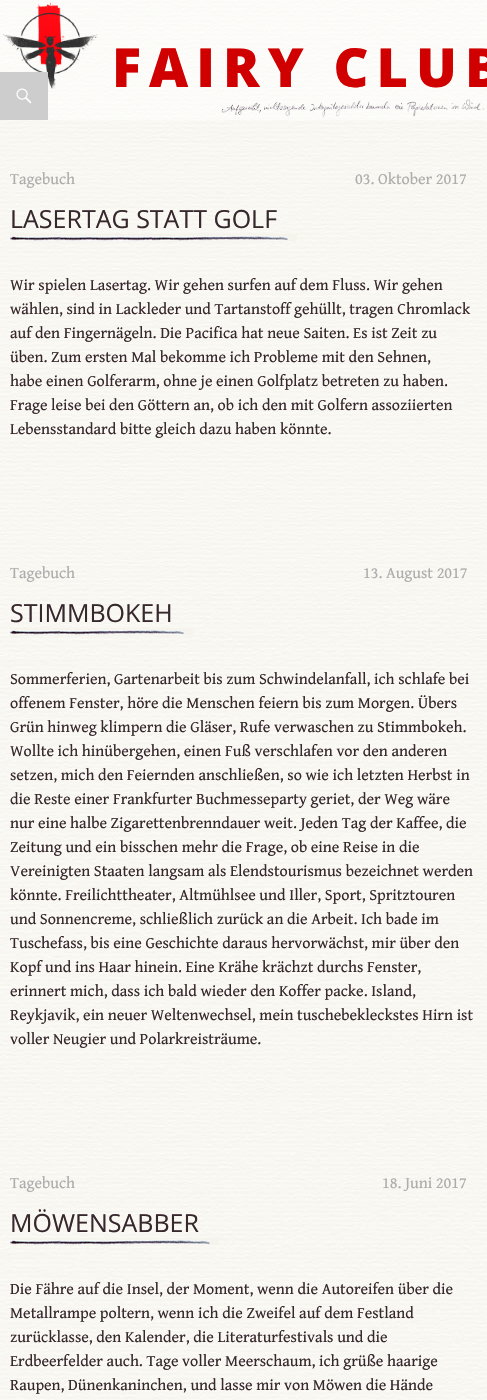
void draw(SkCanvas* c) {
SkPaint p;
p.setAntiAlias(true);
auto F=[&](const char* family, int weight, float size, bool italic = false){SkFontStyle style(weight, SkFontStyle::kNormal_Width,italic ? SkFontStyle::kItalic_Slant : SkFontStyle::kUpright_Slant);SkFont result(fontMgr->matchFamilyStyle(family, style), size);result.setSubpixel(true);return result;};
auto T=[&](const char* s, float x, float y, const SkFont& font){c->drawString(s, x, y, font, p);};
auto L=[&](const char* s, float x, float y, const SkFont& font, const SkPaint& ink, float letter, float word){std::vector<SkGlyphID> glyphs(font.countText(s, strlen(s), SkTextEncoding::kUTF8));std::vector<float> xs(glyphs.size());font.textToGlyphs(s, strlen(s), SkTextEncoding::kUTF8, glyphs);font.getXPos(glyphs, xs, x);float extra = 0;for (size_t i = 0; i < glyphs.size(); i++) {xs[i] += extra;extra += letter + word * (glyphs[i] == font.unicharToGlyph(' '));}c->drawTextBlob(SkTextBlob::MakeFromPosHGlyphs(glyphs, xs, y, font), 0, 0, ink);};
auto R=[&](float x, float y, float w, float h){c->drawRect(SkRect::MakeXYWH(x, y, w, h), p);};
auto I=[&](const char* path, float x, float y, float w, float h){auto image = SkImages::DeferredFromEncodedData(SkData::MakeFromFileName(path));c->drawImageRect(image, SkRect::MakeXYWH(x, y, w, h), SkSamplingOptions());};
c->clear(0xffffffff);
I("1.png",0,0,487,1400);
p.setColor(0x80ffffff);
R(0,0,487,120);
I("2.png",3,2,95,87);
auto f1 = F("Open Sans",800,54);
p.setColor(0xffd00000);
L("FAIRY CLUB",112,87,f1,p,8,0);
I("3.png",221,99,263,18);
p.setColor(0xffcdcdcd);
R(0,72,48,48);
I("4.png",16,88,16,16);
auto f2 = F("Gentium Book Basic",400,16);
p.setColor(0xffadadad);
T("Tagebuch",10,184,f2);
T("03. Oktober 2017",355,184,f2);
auto f3 = F("Open Sans",400,25);
p.setColor(0xff37282e);
T("LASERTAG STATT GOLF",10,228,f3);
I("5.png",10,234,272,8);
I("6.png",10,235,50,6);
I("7.png",163,234,134,7);
T("Wir spielen Lasertag. Wir gehen surfen auf dem Fluss. Wir gehen",10,290,f2);
T("wählen, sind in Lackleder und Tartanstoff gehüllt, tragen Chromlack",10,314,f2);
T("auf den Fingernägeln. Die Pacifica hat neue Saiten. Es ist Zeit zu",10,338,f2);
T("üben. Zum ersten Mal bekomme ich Probleme mit den Sehnen,",10,362,f2);
T("habe einen Golferarm, ohne je einen Golfplatz betreten zu haben.",10,386,f2);
T("Frage leise bei den Göttern an, ob ich den mit Golfern assoziierten",10,410,f2);
T("Lebensstandard bitte gleich dazu haben könnte.",10,434,f2);
p.setColor(0xffadadad);
T("Tagebuch",10,578,f2);
T("13. August 2017",363,578,f2);
p.setColor(0xff37282e);
T("STIMMBOKEH",10,622,f3);
I("8.png",10,628,168,8);
I("7.png",59,628,134,7);
I("6.png",10,629,50,6);
T("Sommerferien, Gartenarbeit bis zum Schwindelanfall, ich schlafe bei",10,684,f2);
T("offenem Fenster, höre die Menschen feiern bis zum Morgen. Übers",10,708,f2);
T("Grün hinweg klimpern die Gläser, Rufe verwaschen zu Stimmbokeh.",10,732,f2);
T("Wollte ich hinübergehen, einen Fuß verschlafen vor den anderen",10,756,f2);
T("setzen, mich den Feiernden anschließen, so wie ich letzten Herbst in",10,780,f2);
T("die Reste einer Frankfurter Buchmesseparty geriet, der Weg wäre",10,804,f2);
T("nur eine halbe Zigarettenbrenndauer weit. Jeden Tag der Kaffee, die",10,828,f2);
T("Zeitung und ein bisschen mehr die Frage, ob eine Reise in die",10,852,f2);
T("Vereinigten Staaten langsam als Elendstourismus bezeichnet werden",10,876,f2);
T("könnte. Freilichttheater, Altmühlsee und Iller, Sport, Spritztouren",10,900,f2);
T("und Sonnencreme, schließlich zurück an die Arbeit. Ich bade im",10,924,f2);
T("Tuschefass, bis eine Geschichte daraus hervorwächst, mir über den",10,948,f2);
T("Kopf und ins Haar hinein. Eine Krähe krächzt durchs Fenster,",10,972,f2);
T("erinnert mich, dass ich bald wieder den Koffer packe. Island,",10,996,f2);
T("Reykjavik, ein neuer Weltenwechsel, mein tuschebekleckstes Hirn ist",10,1020,f2);
T("voller Neugier und Polarkreisträume.",10,1044,f2);
p.setColor(0xffadadad);
T("Tagebuch",10,1188,f2);
T("18. Juni 2017",382,1188,f2);
p.setColor(0xff37282e);
T("MÖWENSABBER",10,1232,f3);
I("9.png",10,1238,194,8);
I("6.png",10,1239,50,6);
I("7.png",85,1238,134,7);
T("Die Fähre auf die Insel, der Moment, wenn die Autoreifen über die",10,1294,f2);
T("Metallrampe poltern, wenn ich die Zweifel auf dem Festland",10,1318,f2);
T("zurücklasse, den Kalender, die Literaturfestivals und die",10,1342,f2);
T("Erdbeerfelder auch. Tage voller Meerschaum, ich grüße haarige",10,1366,f2);
T("Raupen, Dünenkaninchen, und lasse mir von Möwen die Hände",10,1390,f2);
}
